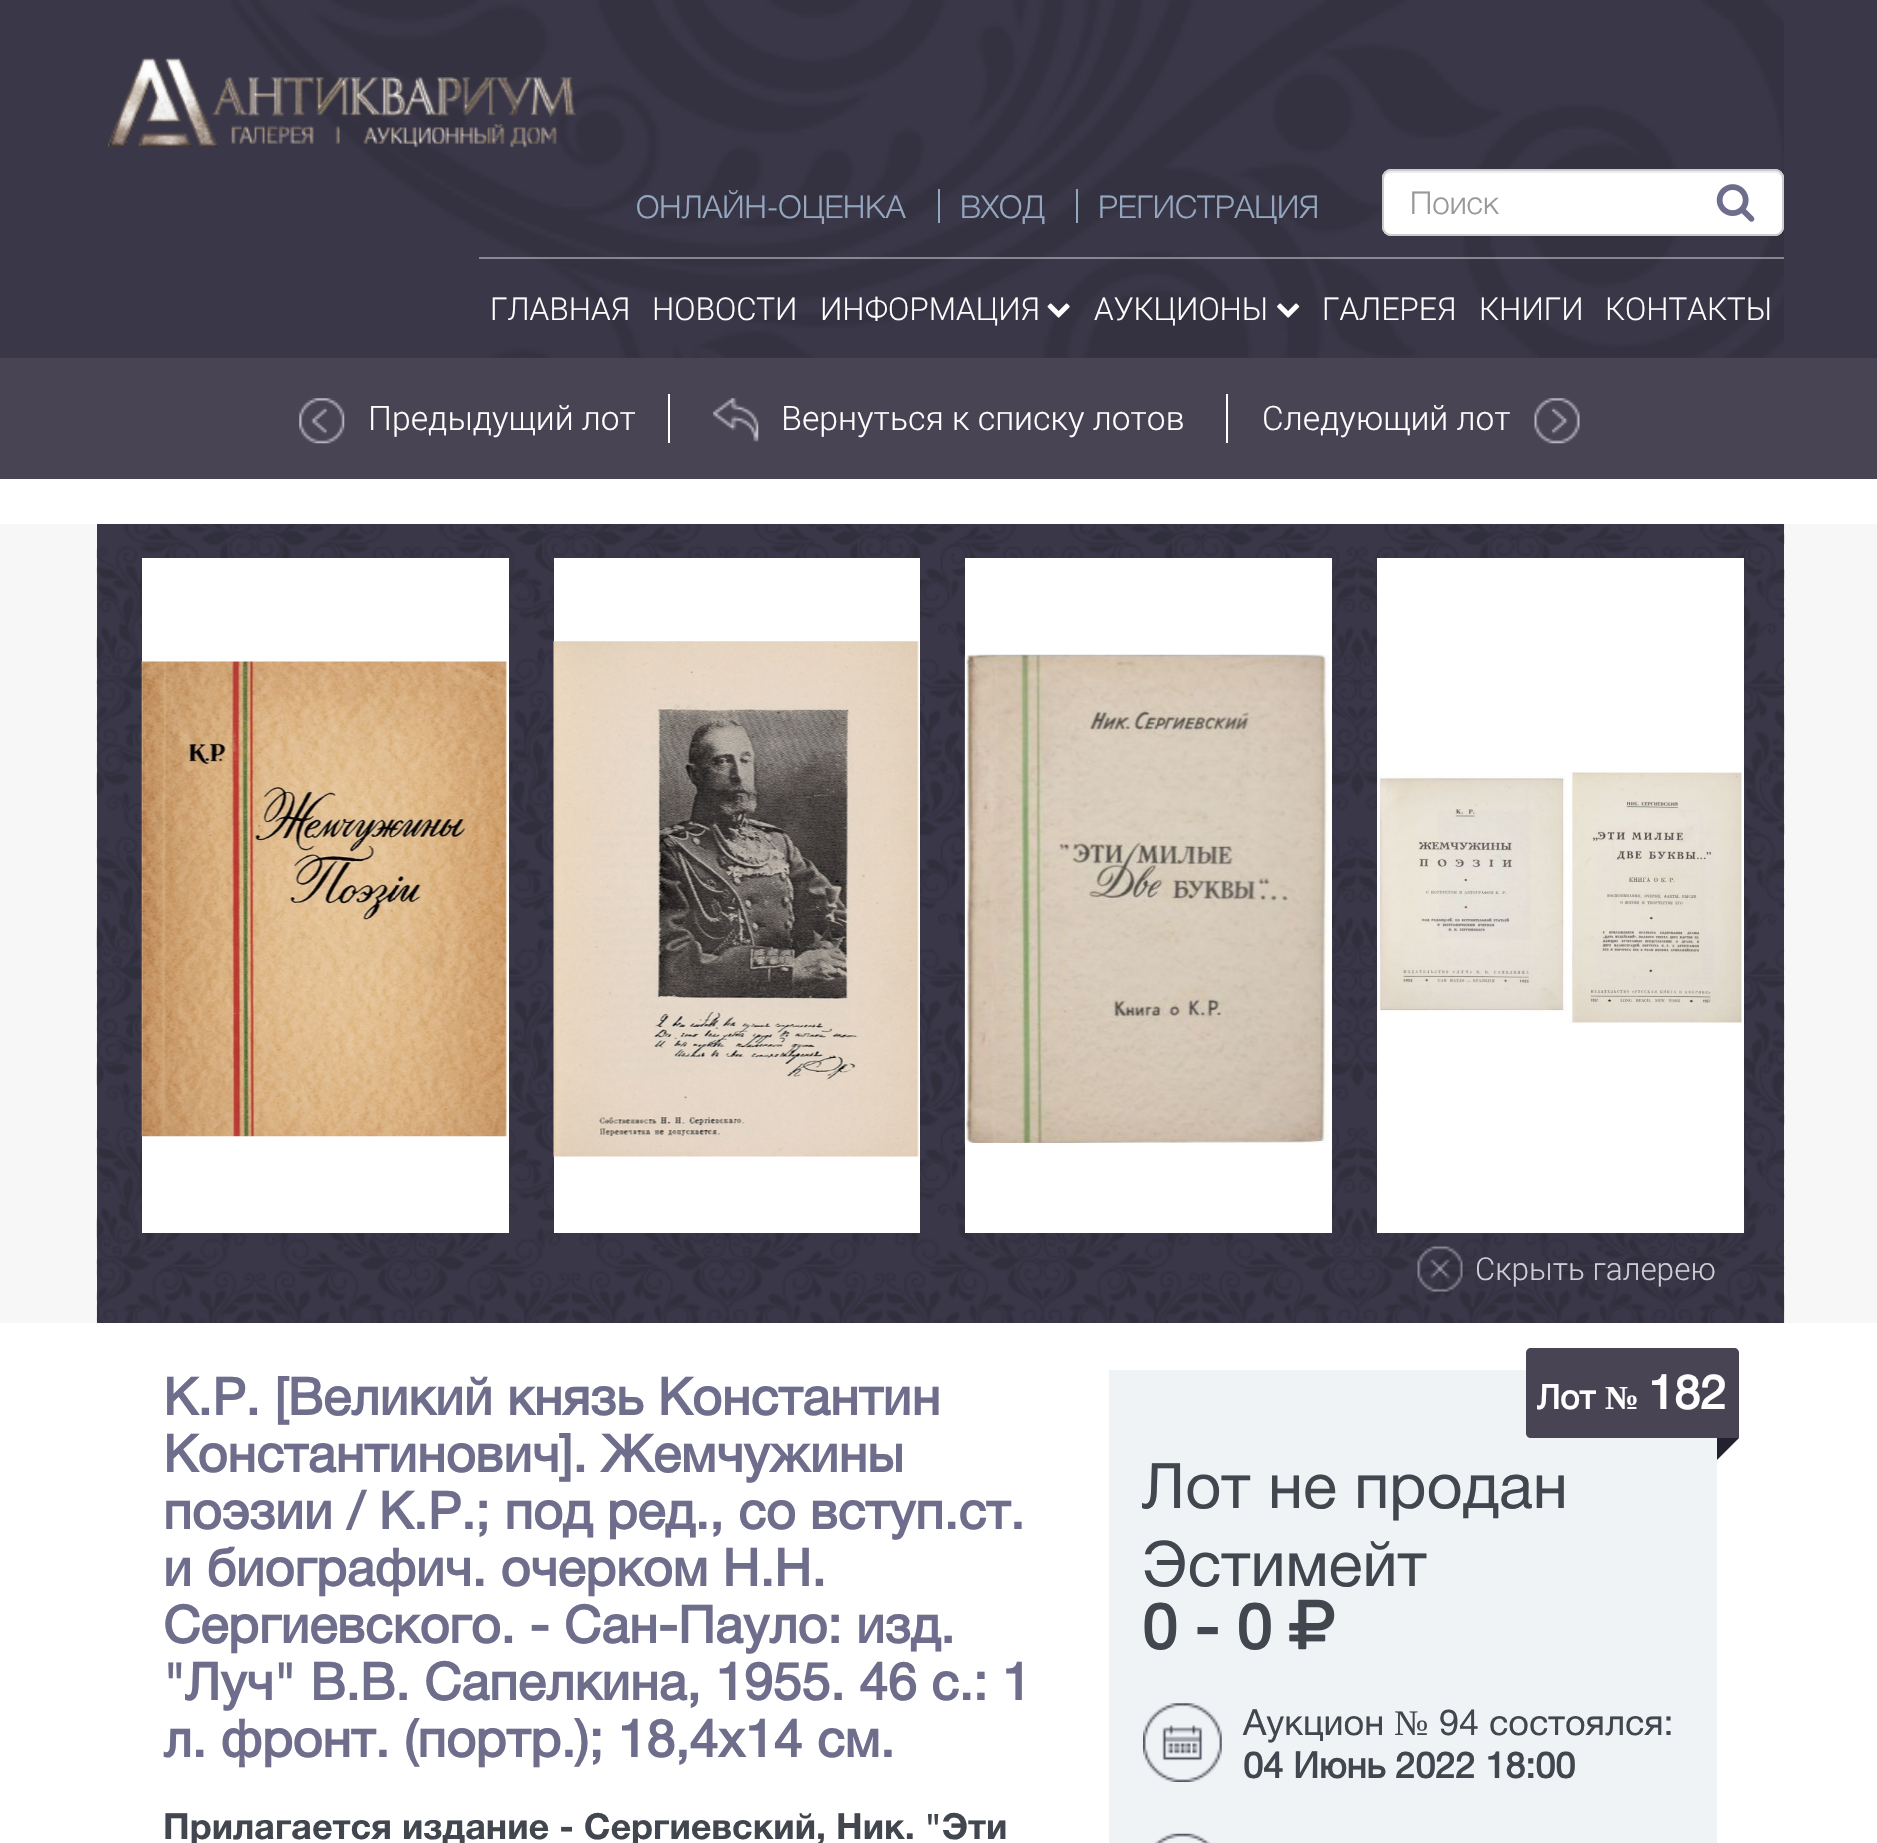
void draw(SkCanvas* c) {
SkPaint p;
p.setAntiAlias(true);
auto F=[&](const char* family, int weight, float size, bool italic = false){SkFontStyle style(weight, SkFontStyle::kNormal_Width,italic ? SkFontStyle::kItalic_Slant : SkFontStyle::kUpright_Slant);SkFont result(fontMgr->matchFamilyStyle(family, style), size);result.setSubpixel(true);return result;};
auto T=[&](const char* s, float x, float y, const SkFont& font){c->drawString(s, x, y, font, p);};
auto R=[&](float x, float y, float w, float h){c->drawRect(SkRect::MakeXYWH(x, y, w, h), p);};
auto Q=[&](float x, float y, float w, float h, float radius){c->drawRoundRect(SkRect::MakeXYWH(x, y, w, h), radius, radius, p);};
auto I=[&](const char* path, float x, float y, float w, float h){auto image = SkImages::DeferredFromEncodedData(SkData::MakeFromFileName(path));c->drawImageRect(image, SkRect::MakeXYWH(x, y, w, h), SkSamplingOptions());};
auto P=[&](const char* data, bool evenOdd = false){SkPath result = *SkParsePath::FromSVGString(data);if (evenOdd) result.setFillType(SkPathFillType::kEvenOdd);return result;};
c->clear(0xffffffff);
p.setColor(0xff3a3749);
R(0,0,1877,358);
I("2.png",230,0,1554,358);
I("1.png",108,57,468,91);
auto f1 = F("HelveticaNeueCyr",300,31.5);
p.setColor(0xff95a6bf);
T("ОНЛАЙН-ОЦЕНКА",636,218,f1);
R(938,189,2,34);
T("ВХОД",960,218,f1);
R(1076,189,2,34);
T("РЕГИСТРАЦИЯ",1098,218,f1);
p.setColor(0xffffffff);
Q(1382,169,402,67,9);
p.setColor(0xffececec);
c->drawPath(P("M1390 173h385c4 0 7 3 7 7v-2c0-4-3-7-7-7h-384c-4 0-7 3-7 7v2c0-4 3-7 6-7z"),p);
p.setStroke(true);
p.setStrokeWidth(2);
p.setColor(0xffcccccc);
c->drawRoundRect(SkRect::MakeXYWH(1383,170,400,65),8,8,p);
p.setStroke(false);
p.setColor(0xff999999);
T("Поиск",1410,214,f1);
I("3.png",1716,184,39,38);
p.setColor(0x66ffffff);
R(479,257,1305,2);
auto f2 = F("Roboto",300,31.5);
p.setColor(0xffffffff);
T("ГЛАВНАЯ",490,320,f2);
T("НОВОСТИ",652,320,f2);
T("ИНФОРМАЦИЯ",820,320,f2);
I("4.png",1047,303,23,15);
T("АУКЦИОНЫ",1094,320,f2);
I("5.png",1277,303,23,15);
T("ГАЛЕРЕЯ",1322,320,f2);
T("КНИГИ",1479,320,f2);
T("КОНТАКТЫ",1605,320,f2);
p.setColor(0xff484454);
R(0,358,1877,121);
p.setColor(0xffffffff);
R(668,394,2,49);
I("6.png",299,398,46,46);
auto f3 = F("Roboto",300,33.75);
T("Предыдущий лот",368,430,f3);
I("7.png",713,398,46,44);
T("Вернуться к списку лотов",781,430,f3);
R(1226,394,2,49);
T("Следующий лот",1262,430,f3);
I("8.png",1534,398,46,46);
p.setColor(0xfff8f7f8);
R(0,524,1877,799);
p.setColor(0xff3a3749);
R(97,524,1687,799);
I("9.png",96,524,1689,799);
p.setColor(0xffffffff);
R(142,558,367,675);
I("10.png",141,661,366,476);
R(554,558,366,675);
I("11.png",553,641,366,516);
R(965,558,367,675);
I("12.png",964,654,365,489);
R(1377,558,367,675);
I("13.png",1377,772,365,252);
I("14.png",1417,1246,46,46);
p.setColor(0xffceced6);
T("Скрыть галерею",1475,1280,f2);
auto f4 = F("HelveticaNeueCyr",700,51.75);
p.setColor(0xff6e6e8c);
T("К.Р. [Великий князь Константин",163,1415,f4);
T("Константинович]. Жемчужины",163,1472,f4);
T("поэзии / К.Р.; под ред., со вступ.ст.",163,1529,f4);
T("и биографич. очерком Н.Н.",163,1586,f4);
T("Сергиевского. - Сан-Пауло: изд.",163,1643,f4);
T("\"Луч\" В.В. Сапелкина, 1955. 46 с.: 1",163,1700,f4);
T("л. фронт. (портр.); 18,4х14 см.",163,1757,f4);
auto f5 = F("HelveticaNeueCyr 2",700,36);
p.setColor(0xff42474f);
T("Прилагается издание - Сергиевский, Ник. \"Эти",163,1839,f5);
p.setColor(0xfff0f3f6);
R(1109,1370,608,473);
p.setColor(0xff484454);
c->drawPath(P("M1531 1348h203c3 0 5 2 5 5v85h-208c-3 0-5-2-5-5v-80c0-3 2-5 5-5z"),p);
auto f6 = F("HelveticaNeueCyr",700,33.75);
p.setColor(0xffffffff);
T("Лот",1537,1409,f6);
auto f7 = F("Liberation Serif",700,33.75);
T("№",1605,1409,f7);
auto f8 = F("HelveticaNeueCyr",700,47);
T("182",1648,1409,f8);
p.setColor(0xff232130);
c->drawPath(P("M1717 1438h22l-22 22z"),p);
auto f9 = F("HelveticaNeueCyr",400,63);
p.setColor(0xff42474f);
T("Лот не продан",1142,1508,f9);
T("Эстимейт",1142,1586,f9);
auto f10 = F("HelveticaNeueCyr",700,63);
T("0 - 0",1142,1649,f10);
I("15.png",1289,1599,46,51);
I("16.png",1143,1703,79,79);
auto f11 = F("HelveticaNeueCyr",400,36);
T("Аукцион",1243,1735,f11);
auto f12 = F("Liberation Serif",400,36);
T("№",1394,1735,f12);
T("94 состоялся:",1439,1735,f11);
auto f13 = F("HelveticaNeueCyr",700,36);
T("04 Июнь 2022 18:00",1243,1778,f13);
I("17.png",1154,1833,57,10);
}
